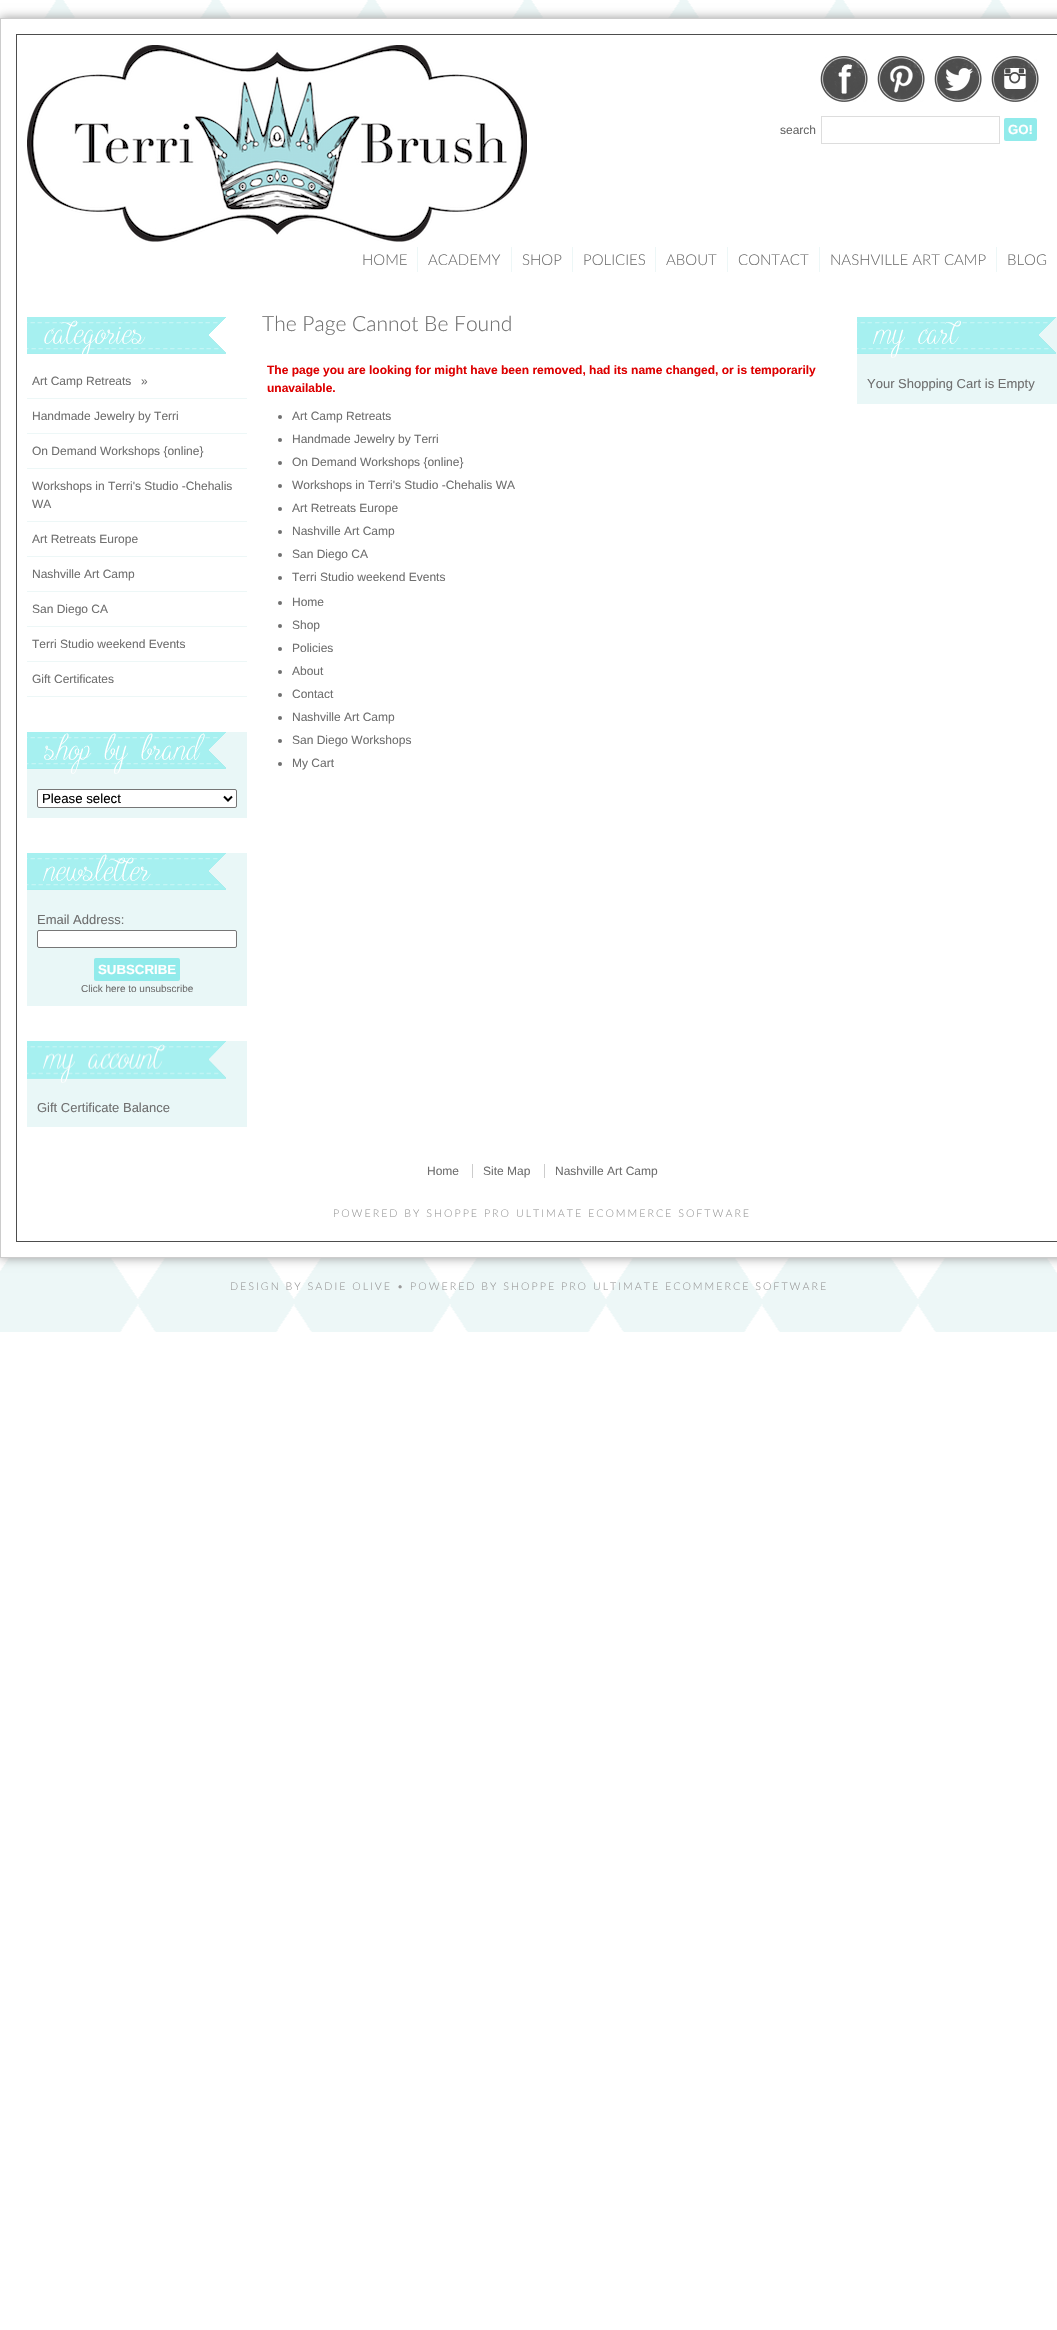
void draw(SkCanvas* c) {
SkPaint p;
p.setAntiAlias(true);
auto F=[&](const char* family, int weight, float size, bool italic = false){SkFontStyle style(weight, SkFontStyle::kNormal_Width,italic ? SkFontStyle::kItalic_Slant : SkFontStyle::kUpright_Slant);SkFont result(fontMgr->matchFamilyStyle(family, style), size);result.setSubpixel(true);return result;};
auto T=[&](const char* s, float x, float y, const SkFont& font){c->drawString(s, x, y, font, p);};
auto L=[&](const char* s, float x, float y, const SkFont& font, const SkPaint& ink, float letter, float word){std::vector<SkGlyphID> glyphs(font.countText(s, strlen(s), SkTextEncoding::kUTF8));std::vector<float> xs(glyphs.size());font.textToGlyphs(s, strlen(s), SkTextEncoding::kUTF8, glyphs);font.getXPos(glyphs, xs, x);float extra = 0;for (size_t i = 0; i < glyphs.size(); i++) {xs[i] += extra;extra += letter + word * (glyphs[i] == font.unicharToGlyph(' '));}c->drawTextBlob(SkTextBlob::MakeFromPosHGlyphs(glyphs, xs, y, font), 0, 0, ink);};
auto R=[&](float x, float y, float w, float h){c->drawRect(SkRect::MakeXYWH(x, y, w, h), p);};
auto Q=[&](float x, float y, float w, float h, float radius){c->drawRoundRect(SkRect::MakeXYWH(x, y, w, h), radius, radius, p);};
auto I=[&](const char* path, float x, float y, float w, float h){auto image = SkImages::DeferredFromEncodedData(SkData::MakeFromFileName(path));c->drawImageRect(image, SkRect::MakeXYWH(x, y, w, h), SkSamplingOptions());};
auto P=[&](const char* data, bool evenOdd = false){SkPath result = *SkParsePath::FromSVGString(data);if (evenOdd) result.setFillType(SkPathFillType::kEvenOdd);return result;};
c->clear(0xffffffff);
I("1.png",0,0,1057,1332);
p.setColor(0xff999999);
p.setMaskFilter(SkMaskFilter::MakeBlur(kNormal_SkBlurStyle, 5));
c->drawRect(SkRect::MakeXYWH(0,18,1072,1240),p);
p.setMaskFilter(nullptr);
p.setColor(0xffffffff);
c->drawRect(SkRect::MakeXYWH(.5,18.5,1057,1239),p);
p.setStroke(true);
p.setStrokeWidth(1);
p.setColor(0xffcccccc);
c->drawRect(SkRect::MakeXYWH(.5,18.5,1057,1239),p);
p.setColor(0xff4d4d4d);
c->drawRect(SkRect::MakeXYWH(16.5,34.5,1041,1207),p);
I("2.png",27,45,500,197);
I("3.png",820,55,48,47);
I("4.png",877,55,48,47);
I("5.png",934,55,48,47);
I("6.png",991,55,48,47);
auto f1 = F("Liberation Sans",400,12);
p.setStroke(false);
p.setColor(0xff666666);
T("search",780,134,f1);
p.setStroke(true);
p.setColor(0xffdddddd);
c->drawRect(SkRect::MakeXYWH(821.5,116.5,178,27),p);
p.setStroke(false);
p.setColor(0xff91ebeb);
Q(1004,118,33,23,2);
auto f2 = F("Liberation Sans",700,13.25);
p.setColor(0xffffffff);
T("GO!",1008,134,f2);
auto f3 = F("Lato",300,15);
p.setColor(0xff6f6f6f);
T("HOME",362,265,f3);
p.setColor(0xffedf7f7);
R(417,247,1,25);
p.setColor(0xff6f6f6f);
T("ACADEMY",428,265,f3);
p.setColor(0xffedf7f7);
R(511,247,1,25);
p.setColor(0xff6f6f6f);
T("SHOP",522,265,f3);
p.setColor(0xffedf7f7);
R(572,247,1,25);
p.setColor(0xff6f6f6f);
T("POLICIES",583,265,f3);
p.setColor(0xffedf7f7);
R(655,247,1,25);
p.setColor(0xff6f6f6f);
T("ABOUT",666,265,f3);
p.setColor(0xffedf7f7);
R(727,247,1,25);
p.setColor(0xff6f6f6f);
T("CONTACT",738,265,f3);
p.setColor(0xffedf7f7);
R(819,247,1,25);
p.setColor(0xff6f6f6f);
T("NASHVILLE ART CAMP",830,265,f3);
p.setColor(0xffedf7f7);
R(996,247,1,25);
p.setColor(0xff6f6f6f);
T("BLOG",1007,265,f3);
I("7.png",27,317,199,37);
p.setColor(0xffedf7f7);
R(27,398,220,1);
p.setColor(0xff6f6f6f);
T("Art Camp Retreats",32,385,f1);
T("»",141,385,f1);
p.setColor(0xffedf7f7);
R(27,433,220,1);
p.setColor(0xff6f6f6f);
T("Handmade Jewelry by Terri",32,420,f1);
p.setColor(0xffedf7f7);
R(27,468,220,1);
p.setColor(0xff6f6f6f);
T("On Demand Workshops {online}",32,455,f1);
p.setColor(0xffedf7f7);
R(27,521,220,1);
p.setColor(0xff6f6f6f);
T("Workshops in Terri's Studio -Chehalis",32,490,f1);
T("WA",32,508,f1);
p.setColor(0xffedf7f7);
R(27,556,220,1);
p.setColor(0xff6f6f6f);
T("Art Retreats Europe",32,543,f1);
p.setColor(0xffedf7f7);
R(27,591,220,1);
p.setColor(0xff6f6f6f);
T("Nashville Art Camp",32,578,f1);
p.setColor(0xffedf7f7);
R(27,626,220,1);
p.setColor(0xff6f6f6f);
T("San Diego CA",32,613,f1);
p.setColor(0xffedf7f7);
R(27,661,220,1);
p.setColor(0xff6f6f6f);
T("Terri Studio weekend Events",32,648,f1);
p.setColor(0xffedf7f7);
R(27,696,220,1);
p.setColor(0xff6f6f6f);
T("Gift Certificates",32,683,f1);
p.setColor(0xffe9f7f7);
R(27,732,220,86);
I("8.png",27,732,199,42);
p.setColor(0xffffffff);
c->drawRoundRect(SkRect::MakeXYWH(37.5,789.5,199,18),1.5,1.5,p);
p.setStroke(true);
p.setColor(0xff767676);
c->drawRoundRect(SkRect::MakeXYWH(37.5,789.5,199,18),1.5,1.5,p);
p.setStrokeWidth(2);
p.setColor(0xff000000);
c->drawPath(P("M224 796.5l4 4l4-4"),p);
auto f4 = F("Liberation Sans",400,13.25);
p.setStroke(false);
T("Please select",42,803,f4);
p.setColor(0xffe9f7f7);
R(27,853,220,153);
I("9.png",27,853,199,37);
auto f5 = F("Liberation Sans",400,13);
p.setColor(0xff6f6f6f);
T("Email Address:",37,924,f5);
p.setColor(0xffffffff);
c->drawRoundRect(SkRect::MakeXYWH(37.5,930.5,199,17),1.5,1.5,p);
p.setStroke(true);
p.setStrokeWidth(1);
p.setColor(0xff767676);
c->drawRoundRect(SkRect::MakeXYWH(37.5,930.5,199,17),1.5,1.5,p);
p.setStroke(false);
p.setColor(0xff91ebeb);
Q(94,958,86,23,2);
p.setColor(0xffffffff);
T("SUBSCRIBE",98,974,f2);
auto f6 = F("Liberation Sans",400,10);
p.setColor(0xff6f6f6f);
T("Click here to unsubscribe",81,992,f6);
p.setColor(0xffe9f7f7);
R(27,1041,220,86);
I("10.png",27,1041,199,42);
p.setColor(0xff6f6f6f);
T("Gift Certificate Balance",37,1112,f5);
auto f7 = F("Lato",300,21);
T("The Page Cannot Be Found",262,331,f7);
auto f8 = F("Liberation Sans",700,12);
p.setColor(0xffdd0000);
T("The page you are looking for might have been removed, had its name changed, or is temporarily",267,374,f8);
T("unavailable.",267,392,f8);
p.setColor(0xff6f6f6f);
c->drawCircle(280,417,2,p);
T("Art Camp Retreats",292,420,f1);
c->drawCircle(280,440,2,p);
T("Handmade Jewelry by Terri",292,443,f1);
c->drawCircle(280,463,2,p);
T("On Demand Workshops {online}",292,466,f1);
c->drawCircle(280,486,2,p);
T("Workshops in Terri's Studio -Chehalis WA",292,489,f1);
c->drawCircle(280,509,2,p);
T("Art Retreats Europe",292,512,f1);
c->drawCircle(280,532,2,p);
T("Nashville Art Camp",292,535,f1);
c->drawCircle(280,555,2,p);
T("San Diego CA",292,558,f1);
c->drawCircle(280,578,2,p);
T("Terri Studio weekend Events",292,581,f1);
c->drawCircle(280,603,2,p);
T("Home",292,606,f1);
c->drawCircle(280,626,2,p);
T("Shop",292,629,f1);
c->drawCircle(280,649,2,p);
T("Policies",292,652,f1);
c->drawCircle(280,672,2,p);
T("About",292,675,f1);
c->drawCircle(280,695,2,p);
T("Contact",292,698,f1);
c->drawCircle(280,718,2,p);
T("Nashville Art Camp",292,721,f1);
c->drawCircle(280,741,2,p);
T("San Diego Workshops",292,744,f1);
c->drawCircle(280,764,2,p);
T("My Cart",292,767,f1);
p.setColor(0xffe9f7f7);
R(857,317,200,87);
I("11.png",857,317,199,41);
p.setColor(0xff6f6f6f);
T("Your Shopping Cart is Empty",867,388,f5);
T("Home",427,1175,f1);
T("Site Map",483,1175,f1);
p.setColor(0xffcccccc);
R(472,1164,1,14);
p.setColor(0xff6f6f6f);
T("Nashville Art Camp",555,1175,f1);
p.setColor(0xffcccccc);
R(544,1164,1,14);
auto f9 = F("Lato",300,10.67);
p.setColor(0xff999999);
L("POWERED BY SHOPPE PRO ULTIMATE ECOMMERCE SOFTWARE",333,1217,f9,p,2,0);
L("DESIGN BY SADIE OLIVE • POWERED BY SHOPPE PRO ULTIMATE ECOMMERCE SOFTWARE",230,1290,f9,p,2,0);
}
